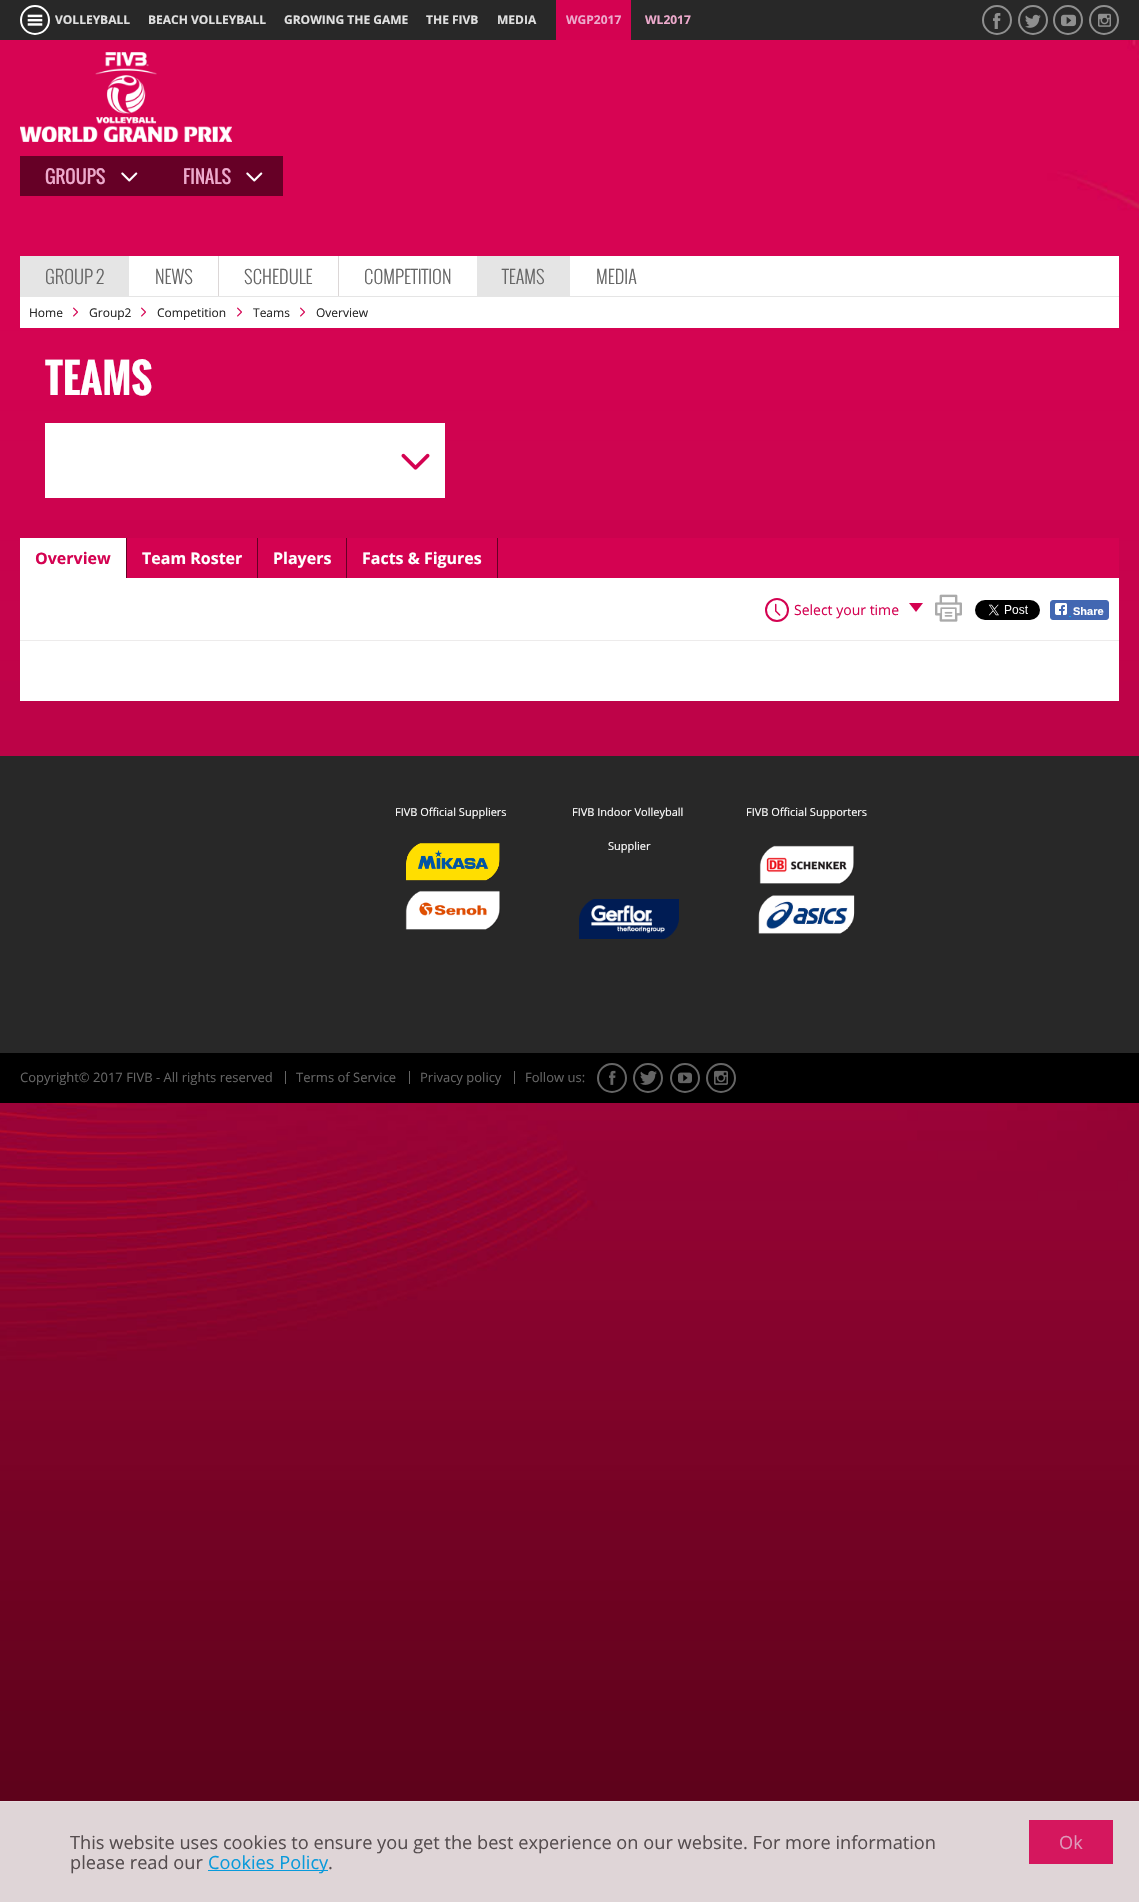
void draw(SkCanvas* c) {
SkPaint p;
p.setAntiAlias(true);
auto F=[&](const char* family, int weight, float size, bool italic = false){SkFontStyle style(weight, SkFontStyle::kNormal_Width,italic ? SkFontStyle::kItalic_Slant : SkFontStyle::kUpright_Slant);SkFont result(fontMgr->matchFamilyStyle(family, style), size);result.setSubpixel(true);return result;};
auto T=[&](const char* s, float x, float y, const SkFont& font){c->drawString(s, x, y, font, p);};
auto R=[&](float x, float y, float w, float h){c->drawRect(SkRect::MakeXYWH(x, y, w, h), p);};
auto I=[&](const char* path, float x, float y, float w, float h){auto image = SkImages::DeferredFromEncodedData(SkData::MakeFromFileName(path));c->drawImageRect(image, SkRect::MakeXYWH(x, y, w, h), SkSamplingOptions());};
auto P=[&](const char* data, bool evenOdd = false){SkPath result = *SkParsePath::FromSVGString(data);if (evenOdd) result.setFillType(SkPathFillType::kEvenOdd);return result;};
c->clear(0xffffffff);
I("1.png",0,40,1139,1862);
p.setColor(0xff282828);
R(0,0,1139,40);
p.setStroke(true);
p.setStrokeWidth(2);
p.setColor(0xffffffff);
c->drawCircle(35,20,14,p);
I("2.png",27,14,16,12);
auto f1 = F("Open Sans",700,12);
p.setStroke(false);
p.setColor(0xffe0e0e0);
T("VOLLEYBALL",55,24,f1);
T("BEACH VOLLEYBALL",148,24,f1);
T("GROWING THE GAME",284,24,f1);
T("THE FIVB",426,24,f1);
T("MEDIA",497,24,f1);
p.setColor(0xffd40251);
R(556,0,75,40);
p.setColor(0xffedaacc);
T("WGP2017",566,24,f1);
T("WL2017",645,24,f1);
p.setStroke(true);
p.setColor(0xff8f8f8f);
c->drawCircle(997,20,14,p);
I("3.png",993,13,8,16);
c->drawCircle(1033,20,14,p);
I("4.png",1025,14,16,14);
c->drawCircle(1068,20,14,p);
I("5.png",1061,14,15,13);
c->drawCircle(1104,20,14,p);
I("6.png",1098,13,13,14);
I("7.png",20,52,212,90);
p.setStroke(false);
p.setColor(0xff660026);
R(20,156,263,40);
auto f2 = F("Oswald",400,18);
p.setColor(0xffedaacc);
T("GROUPS",45,184,f2);
I("8.png",121,172,17,10);
T("FINALS",183,184,f2);
I("8.png",246,172,17,10);
p.setColor(0xffffffff);
R(129,256,990,40);
p.setColor(0xffe5e5e5);
R(20,256,109,40);
auto f3 = F("Oswald",300,18);
p.setColor(0xff656565);
T("GROUP 2",45,284,f3);
T("NEWS",155,284,f3);
p.setColor(0xffdcd7d7);
R(218,256,1,40);
p.setColor(0xff656565);
T("SCHEDULE",244,284,f3);
p.setColor(0xffdcd7d7);
R(338,256,1,40);
p.setColor(0xff656565);
T("COMPETITION",364,284,f3);
p.setColor(0xffe5e5e5);
R(477,256,93,40);
p.setColor(0xff656565);
T("TEAMS",502,284,f3);
T("MEDIA",596,284,f3);
p.setColor(0xffffffff);
R(20,297,1099,31);
p.setColor(0xffe5e5e5);
R(20,296,1099,1);
auto f4 = F("Open Sans",400,12);
p.setColor(0xff282828);
T("Home",29,317,f4);
I("9.png",73,307,5,10);
T("Group2",89,317,f4);
I("9.png",141,307,5,10);
T("Competition",157,317,f4);
I("9.png",237,307,5,10);
T("Teams",253,317,f4);
I("9.png",300,307,5,10);
T("Overview",316,317,f4);
auto f5 = F("Oswald",700,40);
p.setColor(0xffffffff);
T("TEAMS",45,395,f5);
R(45,423,400,75);
I("10.png",401,453,29,17);
p.setColor(0xffd40251);
R(127,538,992,40);
p.setColor(0xffffffff);
R(20,538,106,40);
p.setColor(0xff660026);
R(126,538,1,40);
auto f6 = F("Open Sans",700,16);
p.setColor(0xffd40251);
T("Overview",35,564,f6);
p.setColor(0xff660026);
R(257,538,1,40);
p.setColor(0xffffffff);
T("Team Roster",142,564,f6);
p.setColor(0xff660026);
R(346,538,1,40);
p.setColor(0xffffffff);
T("Players",273,564,f6);
p.setColor(0xff660026);
R(497,538,1,40);
p.setColor(0xffffffff);
T("Facts & Figures",362,564,f6);
R(20,578,1099,62);
p.setColor(0xffedebeb);
R(20,640,1099,1);
p.setStroke(true);
p.setColor(0xffd40251);
c->drawCircle(777,610,11,p);
I("11.png",775,603,6,13);
auto f7 = F("Open Sans",400,14);
p.setStroke(false);
T("Select your time",794,615,f7);
c->drawPath(P("M909 603h14l-7 9z"),p);
I("12.png",935,594,27,28);
I("13.png",975,600,65,20);
p.setColor(0xff4267b2);
c->drawRoundRect(SkRect::MakeXYWH(1050.5,600.5,58,19),2.5,2.5,p);
p.setStroke(true);
p.setStrokeWidth(1);
c->drawRoundRect(SkRect::MakeXYWH(1050.5,600.5,58,19),2.5,2.5,p);
I("14.png",1055,603,12,12);
auto f8 = F("Liberation Sans",700,11);
p.setStroke(false);
p.setColor(0xffffffff);
T("Share",1073,615,f8);
p.setColor(0xff00abf0);
R(1069,616,2,1);
p.setColor(0xffffffff);
R(20,641,1099,60);
p.setColor(0xff282828);
R(0,756,1139,297);
auto f9 = F("Open Sans",400,11);
p.setColor(0xffffffff);
T("FIVB Official Suppliers",395,816,f9);
I("15.png",406,843,94,38);
I("16.png",405,890,96,40);
T("FIVB Indoor Volleyball",572,816,f9);
T("Supplier",608,850,f9);
I("17.png",579,899,100,40);
T("FIVB Official Supporters",746,816,f9);
I("18.png",759,845,96,39);
I("19.png",758,895,97,39);
p.setColor(0xff000000);
R(0,1053,1139,50);
auto f10 = F("Open Sans",400,13);
p.setColor(0xff656565);
T("Copyright© 2017 FIVB - All rights reserved",20,1082,f10);
R(285,1071,1,13);
T("Terms of Service",296,1082,f10);
R(409,1071,1,13);
T("Privacy policy",420,1082,f10);
R(514,1071,1,13);
T("Follow us:",525,1082,f10);
p.setStroke(true);
p.setStrokeWidth(2);
c->drawCircle(612,1078,14,p);
I("20.png",609,1070,7,15);
c->drawCircle(648,1078,14,p);
I("21.png",640,1070,17,15);
c->drawCircle(685,1078,14,p);
I("22.png",678,1072,14,12);
c->drawCircle(721,1078,14,p);
I("23.png",714,1070,14,15);
p.setStroke(false);
p.setColor(0xe6edebeb);
R(0,1802,1139,100);
p.setColor(0xffe7dddf);
R(0,1801,1139,1);
auto f11 = F("Open Sans",400,18.2);
p.setColor(0xff554d4f);
T("This website uses cookies to ensure you get the best experience on our website. For more information",70,1849,f11);
T("please read our",70,1869,f11);
p.setColor(0xff099adb);
R(208,1870,120,1);
T("Cookies Policy",208,1869,f11);
p.setColor(0xff554d4f);
T(".",328,1869,f11);
p.setColor(0xffd5175e);
R(1029,1820,84,44);
p.setColor(0xffde99ba);
T("Ok",1059,1849,f11);
}
